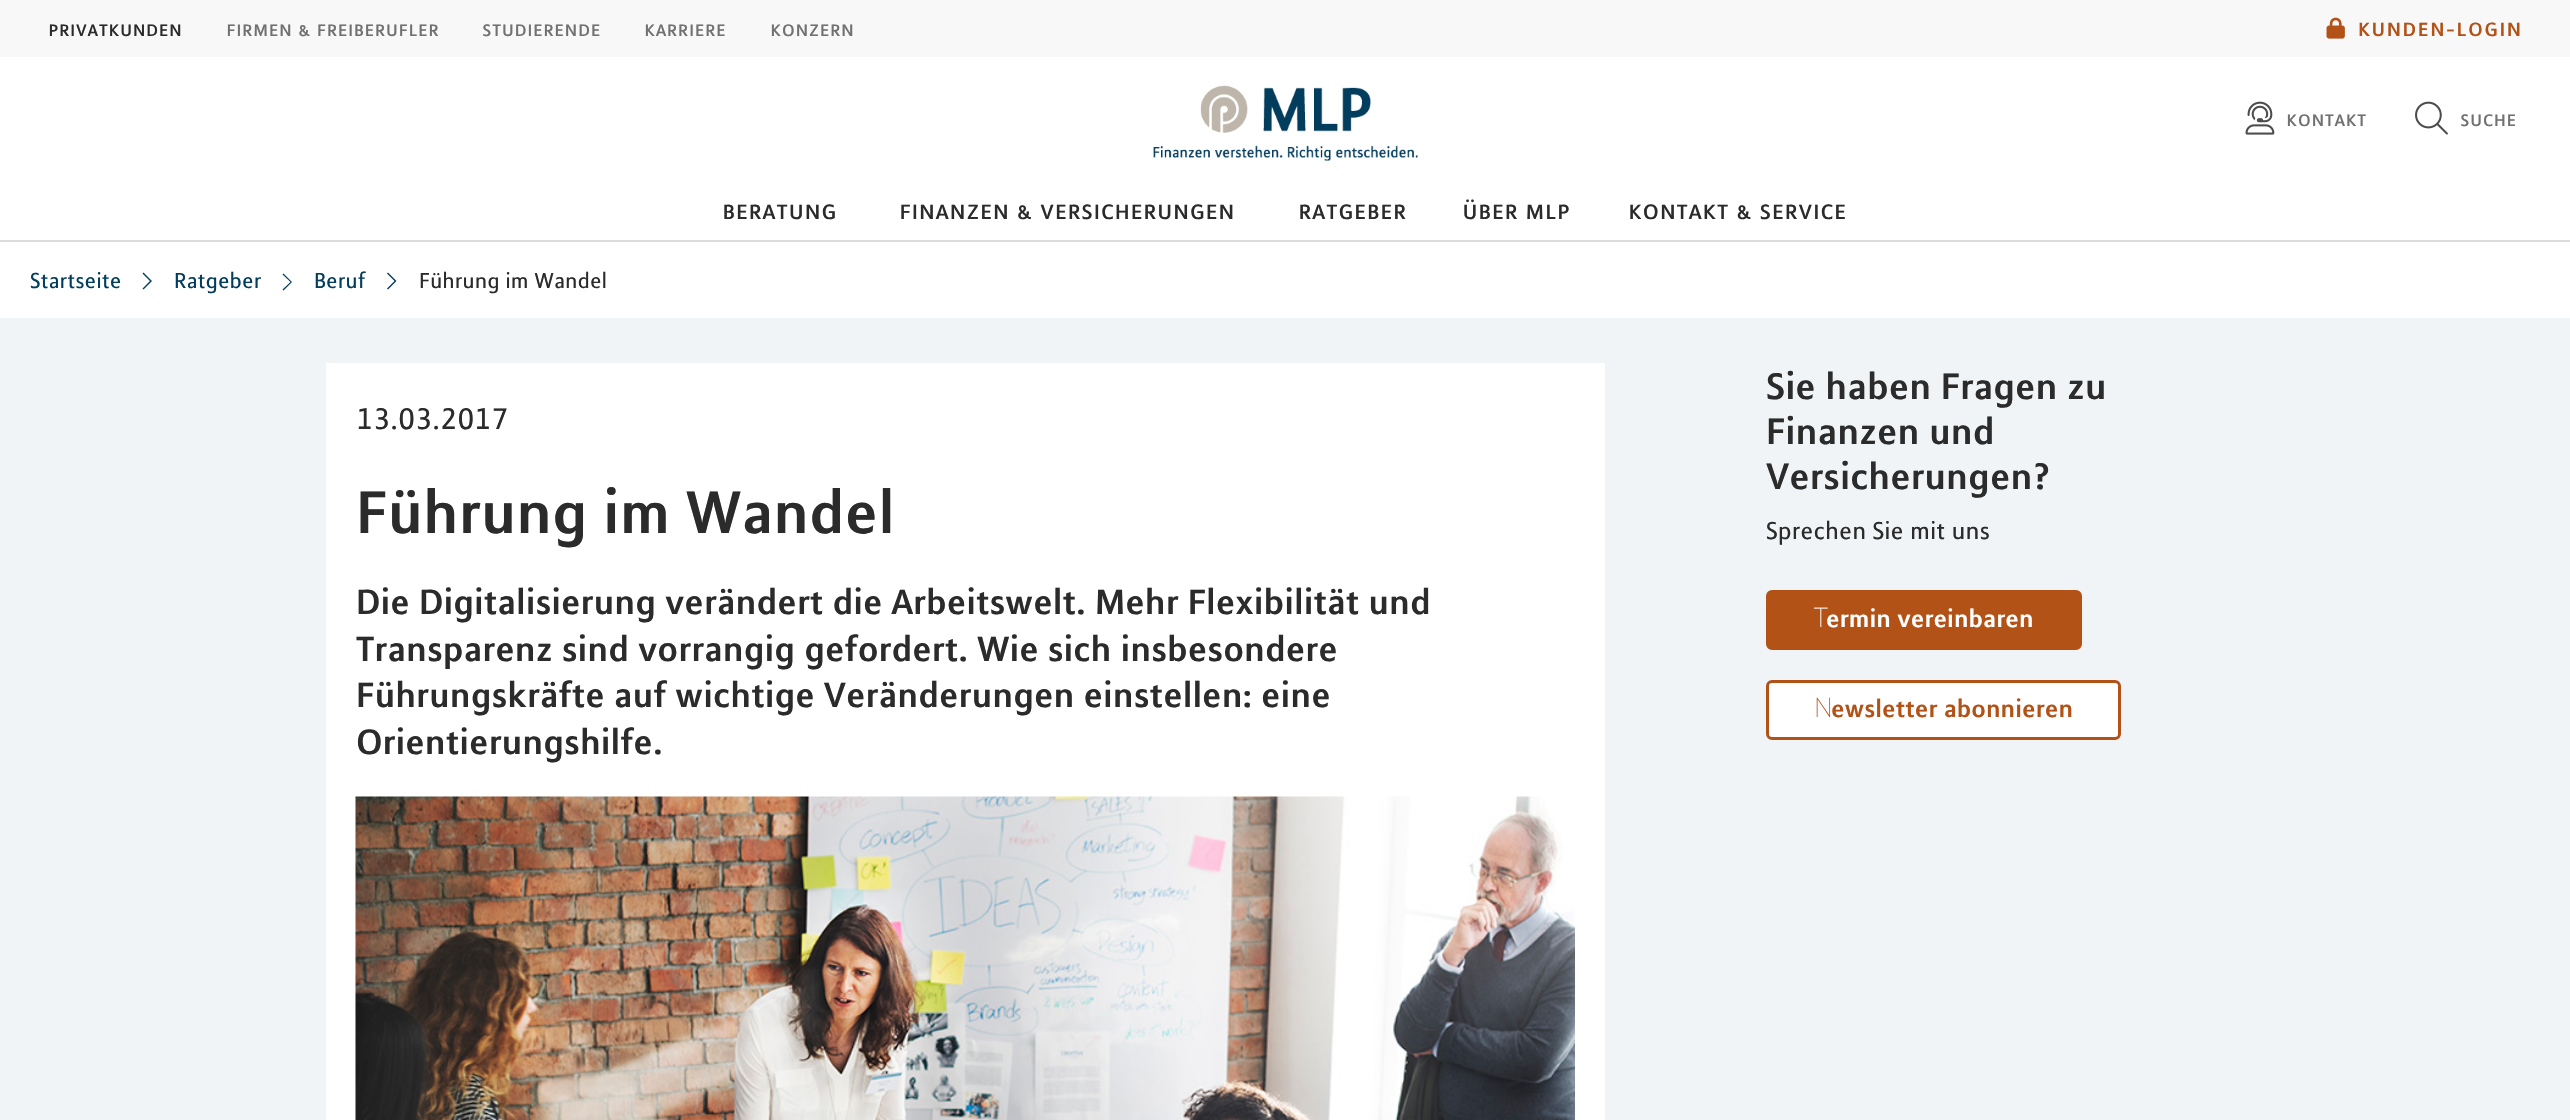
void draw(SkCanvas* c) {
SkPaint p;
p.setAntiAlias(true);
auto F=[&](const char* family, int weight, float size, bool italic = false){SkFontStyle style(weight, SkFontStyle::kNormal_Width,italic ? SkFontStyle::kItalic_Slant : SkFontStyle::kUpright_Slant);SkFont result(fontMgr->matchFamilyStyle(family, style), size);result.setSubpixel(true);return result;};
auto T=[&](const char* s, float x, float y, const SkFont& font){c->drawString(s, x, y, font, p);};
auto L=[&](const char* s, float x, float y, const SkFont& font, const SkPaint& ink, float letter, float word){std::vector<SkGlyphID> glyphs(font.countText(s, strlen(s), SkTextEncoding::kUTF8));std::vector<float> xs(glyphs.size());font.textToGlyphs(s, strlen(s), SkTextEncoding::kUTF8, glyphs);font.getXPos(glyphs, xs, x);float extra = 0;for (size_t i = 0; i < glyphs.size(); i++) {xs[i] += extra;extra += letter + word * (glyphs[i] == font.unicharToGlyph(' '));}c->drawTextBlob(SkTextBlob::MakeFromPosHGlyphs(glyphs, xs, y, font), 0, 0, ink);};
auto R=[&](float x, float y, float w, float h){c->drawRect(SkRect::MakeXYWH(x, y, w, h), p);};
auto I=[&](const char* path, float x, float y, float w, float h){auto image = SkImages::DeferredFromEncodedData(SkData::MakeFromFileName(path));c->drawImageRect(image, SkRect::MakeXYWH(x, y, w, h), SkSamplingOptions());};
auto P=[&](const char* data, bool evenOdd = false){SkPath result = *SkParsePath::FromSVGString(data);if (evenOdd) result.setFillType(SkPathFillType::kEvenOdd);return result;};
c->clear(0xffffffff);
p.setColor(0xffdbdbdb);
R(0,240,2570,2);
p.setColor(0xfff8f8f8);
R(0,0,2570,57);
auto f1 = F("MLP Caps",400,24);
p.setColor(0xff2b2b2b);
T("privatkunden",48,36,f1);
p.setColor(0xff717171);
T("firmen & freiberufler",226,36,f1);
T("studierende",482,36,f1);
T("karriere",644,36,f1);
T("konzern",770,36,f1);
I("1.png",2326,17,19,22);
auto f2 = F("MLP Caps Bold",700,21);
p.setColor(0xffb25217);
L("KUNDEN-LOGIN",2358,36,f2,p,1.5,0);
I("2.png",1153,85,265,76);
I("3.png",2245,101,30,34);
p.setColor(0xff717171);
T("kontakt",2286,126,f1);
I("4.png",2415,101,33,34);
T("suche",2460,126,f1);
auto f3 = F("MLP Caps",400,30);
p.setColor(0xff2b2b2b);
T("beratung",722,219,f3);
T("finanzen & versicherungen",899,219,f3);
T("ratgeber",1298,219,f3);
T("über mlp",1462,219,f3);
T("kontakt & service",1628,219,f3);
p.setColor(0xfff1f4f6);
R(0,318,2570,802);
auto f4 = F("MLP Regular",400,24);
p.setColor(0xff033d5d);
T("Startseite",30,288,f4);
c->drawPath(P("M152 281l-8.5 8.5l-1-1l7.5-7.5l-7.5-7.5l1-1z"),p);
T("Ratgeber",174,288,f4);
c->drawPath(P("M292 282l-8.5 8.5l-1-1l8-7.5l-8-7.5l1-1z"),p);
T("Beruf",314,288,f4);
c->drawPath(P("M396.5 281l-8.5 8.5l-1-1l7.5-7.5l-7.5-7.5l1-1z"),p);
p.setColor(0xff2b2b2b);
T("Führung im Wandel",419,288,f4);
p.setColor(0xffffffff);
R(326,363,1279,757);
auto f5 = F("MLP Regular",400,33);
p.setColor(0xff2b2b2b);
T("13.03.2017",356,429,f5);
auto f6 = F("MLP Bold",700,66);
T("Führung im Wandel",356,533,f6);
auto f7 = F("MLP Bold",700,38.6);
T("Die Digitalisierung verändert die Arbeitswelt. Mehr Flexibilität und",356,614,f7);
T("Transparenz sind vorrangig gefordert. Wie sich insbesondere",356,661,f7);
T("Führungskräfte auf wichtige Veränderungen einstellen: eine",356,707,f7);
T("Orientierungshilfe.",356,754,f7);
I("5.png",355,796,1220,324);
auto f8 = F("MLP Bold",700,40.5);
T("Sie haben Fragen zu",1766,399,f8);
T("Finanzen und",1766,444,f8);
T("Versicherungen?",1766,489,f8);
auto f9 = F("MLP Regular",400,27);
T("Sprechen Sie mit uns",1766,539,f9);
p.setColor(0xffb25217);
c->drawRoundRect(SkRect::MakeXYWH(1767.5,591.5,313,57),4.5,4.5,p);
p.setStroke(true);
p.setStrokeWidth(3);
c->drawRoundRect(SkRect::MakeXYWH(1767.5,591.5,313,57),4.5,4.5,p);
auto f10 = F("Noto Sans",100,27);
p.setStroke(false);
p.setColor(0xffffffff);
T("T",1814,627,f10);
auto f11 = F("MLP Bold",700,27);
T("ermin vereinbaren",1826,627,f11);
c->drawRoundRect(SkRect::MakeXYWH(1767.5,681.5,352,57),4.5,4.5,p);
p.setStroke(true);
p.setColor(0xffb25217);
c->drawRoundRect(SkRect::MakeXYWH(1767.5,681.5,352,57),4.5,4.5,p);
p.setStroke(false);
T("N",1814,717,f10);
T("ewsletter abonnieren",1831,717,f11);
}
